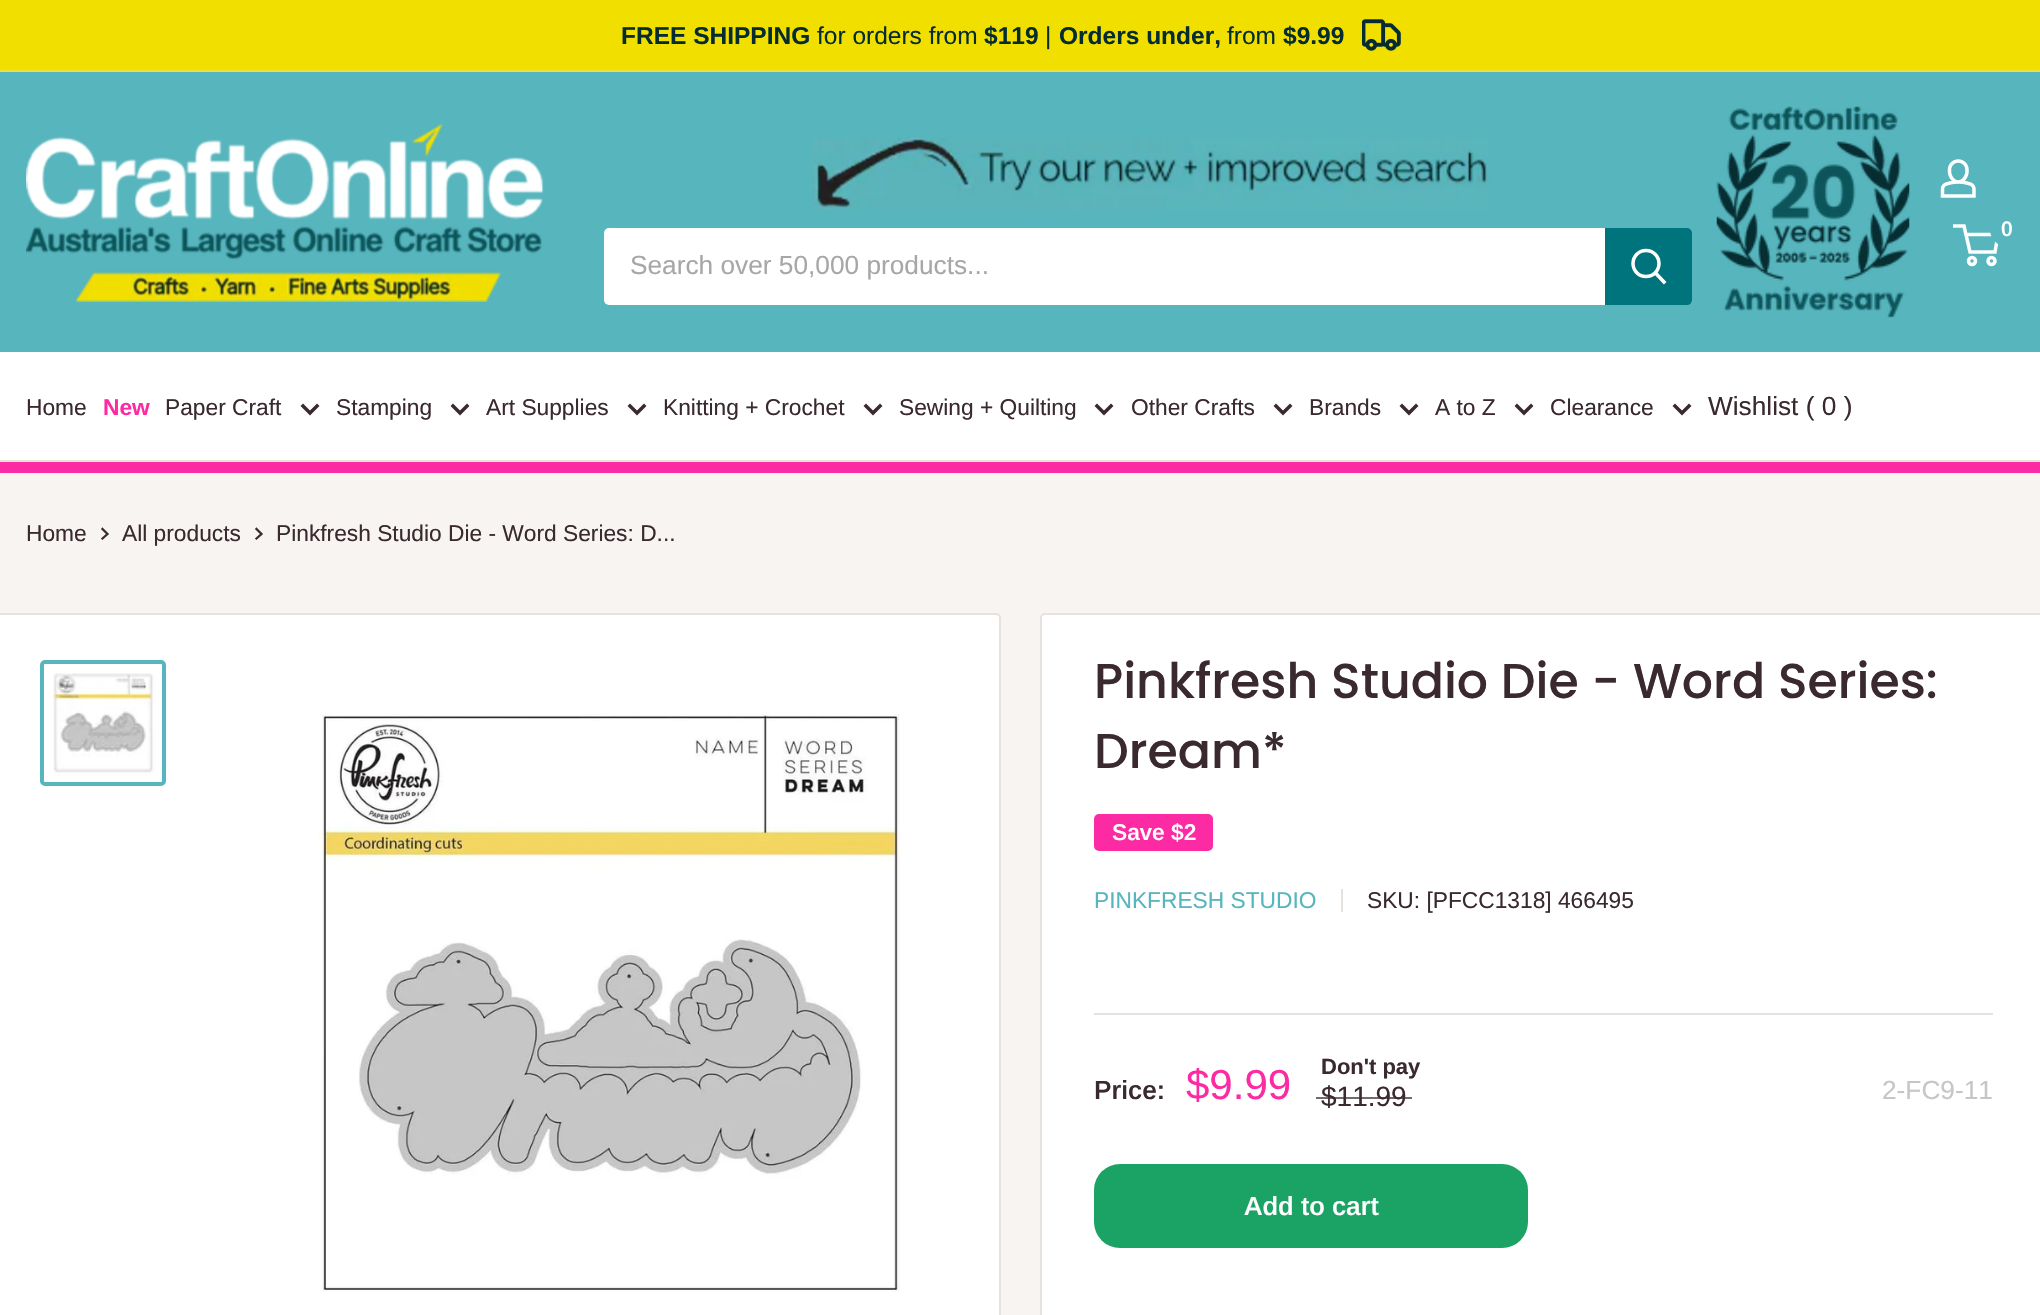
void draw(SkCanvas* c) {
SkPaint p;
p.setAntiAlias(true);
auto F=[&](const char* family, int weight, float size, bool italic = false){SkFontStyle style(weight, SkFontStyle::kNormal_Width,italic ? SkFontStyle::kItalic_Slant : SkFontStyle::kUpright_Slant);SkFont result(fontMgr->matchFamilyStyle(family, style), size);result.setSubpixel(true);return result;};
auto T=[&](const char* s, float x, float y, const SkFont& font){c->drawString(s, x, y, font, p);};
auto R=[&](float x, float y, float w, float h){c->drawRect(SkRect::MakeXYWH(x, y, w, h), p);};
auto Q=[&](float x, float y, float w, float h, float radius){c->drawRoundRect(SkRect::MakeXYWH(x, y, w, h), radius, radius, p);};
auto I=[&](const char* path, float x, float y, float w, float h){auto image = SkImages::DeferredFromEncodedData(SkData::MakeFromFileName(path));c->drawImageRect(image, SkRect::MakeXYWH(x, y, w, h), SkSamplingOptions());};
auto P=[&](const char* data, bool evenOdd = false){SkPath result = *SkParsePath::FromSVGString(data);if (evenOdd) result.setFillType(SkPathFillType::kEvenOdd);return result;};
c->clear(0xfff7f4f2);
p.setColor(0xfff1df00);
R(0,0,2040,70);
p.setColor(0xffefe042);
R(0,70,2040,2);
auto f1 = F("Arimo",700,24.5);
p.setColor(0xff052d31);
T("FREE SHIPPING",621,44,f1);
auto f2 = F("Arimo",400,24.5);
T("for orders from",817,44,f2);
T("$119",984,44,f1);
T("|",1045,44,f2);
T("Orders under,",1059,44,f1);
T("from",1227,44,f2);
T("$9.99",1283,44,f1);
I("1.png",1362,19,39,32);
p.setColor(0xff57b5bd);
R(0,72,2040,280);
I("2.png",26,123,518,179);
I("3.png",1716,106,194,212);
I("4.png",1940,159,36,39);
p.setStroke(true);
p.setStrokeWidth(3.5);
p.setColor(0xffffffff);
c->drawCircle(1972,261,3.5,p);
c->drawCircle(1991.5,261,3.5,p);
c->drawPath(P("M1966 234.5h32l-3 17.5h-25l-6-26h-11"),p);
p.setStroke(false);
p.setColor(0xff57b5bd);
c->drawCircle(2007.5,229.5,17.5,p);
auto f3 = F("Arimo",600,21);
p.setColor(0xffffffff);
T("0",2001,236,f3);
I("5.png",811,137,678,73);
Q(604,228,1088,77,5);
auto f4 = F("Arimo",400,26.25);
p.setColor(0xffa7a7a7);
T("Search over 50,000 products...",630,274,f4);
p.setColor(0xff00747d);
c->drawPath(P("M1605 228h82c3 0 5 2 5 5v67c0 3-2 5-5 5h-82z"),p);
p.setStroke(true);
p.setStrokeCap(SkPaint::kSquare_Cap);
p.setColor(0xffffffff);
c->drawPath(P("M1664 282l-8.5-9"),p);
p.setStrokeCap(SkPaint::kButt_Cap);
c->drawCircle(1646,263.5,13,p);
p.setStroke(false);
R(0,352,2040,108);
p.setColor(0xffe7e2de);
R(0,460,2040,2);
auto f5 = F("Arimo",400,22.75);
p.setColor(0xff3a2a2f);
T("Home",26,415,f5);
auto f6 = F("Arimo",700,22.75);
p.setColor(0xfffc2ba3);
T("New",103,415,f6);
p.setColor(0xff3a2a2f);
T("Paper Craft",165,415,f5);
p.setStroke(true);
p.setStrokeCap(SkPaint::kSquare_Cap);
c->drawPath(P("M317 406l-7 7l-7-7"),p);
p.setStroke(false);
T("Stamping",336,415,f5);
p.setStroke(true);
c->drawPath(P("M467 406l-7 7l-7-7"),p);
p.setStroke(false);
T("Art Supplies",486,415,f5);
p.setStroke(true);
c->drawPath(P("M644 406l-7 7l-7-7"),p);
p.setStroke(false);
T("Knitting + Crochet",663,415,f5);
p.setStroke(true);
c->drawPath(P("M880 406l-7 7l-7-7"),p);
p.setStroke(false);
T("Sewing + Quilting",899,415,f5);
p.setStroke(true);
c->drawPath(P("M1111 406l-7 7l-7-7"),p);
p.setStroke(false);
T("Other Crafts",1131,415,f5);
p.setStroke(true);
c->drawPath(P("M1290 406l-7 7l-7-7"),p);
p.setStroke(false);
T("Brands",1309,415,f5);
p.setStroke(true);
c->drawPath(P("M1416 406l-7 7l-7-7"),p);
p.setStroke(false);
T("A to Z",1435,415,f5);
p.setStroke(true);
c->drawPath(P("M1531 406l-7 7l-7-7"),p);
p.setStroke(false);
T("Clearance",1550,415,f5);
p.setStroke(true);
c->drawPath(P("M1689 406l-7 7l-7-7"),p);
p.setStroke(false);
T("Wishlist ( 0 )",1708,415,f4);
p.setColor(0xfffc2ba3);
R(0,462,2040,11);
p.setColor(0xff3a2a2f);
T("Home",26,541,f5);
p.setStroke(true);
p.setStrokeWidth(2.3);
c->drawPath(P("M102.5 529l5 5l-5 4.5"),p);
p.setStroke(false);
T("All products",122,541,f5);
p.setStroke(true);
c->drawPath(P("M256.5 529l5 5l-5 4.5"),p);
p.setStroke(false);
T("Pinkfresh Studio Die - Word Series: D...",276,541,f5);
p.setColor(0xffffffff);
c->drawRoundRect(SkRect::MakeXYWH(-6,614,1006,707),4,4,p);
p.setStroke(true);
p.setStrokeWidth(2);
p.setStrokeCap(SkPaint::kButt_Cap);
p.setColor(0xffe7e2de);
c->drawRoundRect(SkRect::MakeXYWH(-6,614,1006,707),4,4,p);
p.setStrokeWidth(4);
p.setColor(0xff57b5bd);
c->drawRoundRect(SkRect::MakeXYWH(42,662,122,122),3,3,p);
I("6.png",52,673,104,104);
I("7.png",317,714,586,578);
p.setStroke(false);
p.setColor(0xffffffff);
c->drawRoundRect(SkRect::MakeXYWH(1041,614,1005,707),4,4,p);
p.setStroke(true);
p.setStrokeWidth(2);
p.setColor(0xffe7e2de);
c->drawRoundRect(SkRect::MakeXYWH(1041,614,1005,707),4,4,p);
auto f7 = F("Poppins",500,49);
p.setStroke(false);
p.setColor(0xff3a2a2f);
T("Pinkfresh Studio Die - Word Series:",1094,698,f7);
T("Dream*",1094,768,f7);
p.setColor(0xfffc2ba3);
Q(1094,814,119,37,5);
auto f8 = F("Arimo",600,22.75);
p.setColor(0xffffffff);
T("Save $2",1112,840,f8);
p.setColor(0xff57b5bd);
T("PINKFRESH STUDIO",1094,908,f5);
p.setColor(0xffe7e2de);
R(1341,889,2,23);
p.setColor(0xff3a2a2f);
T("SKU: [PFCC1318] 466495",1367,908,f5);
p.setColor(0xffe6e2de);
R(1094,1013,899,2);
auto f9 = F("Arimo",600,26.25);
p.setColor(0xff3a2a2f);
T("Price:",1094,1099,f9);
auto f10 = F("Arimo",400,42);
p.setColor(0xfffc2ba3);
T("$9.99",1186,1099,f10);
auto f11 = F("Arimo",700,22);
p.setColor(0xff3a2a2f);
T("Don't pay",1321,1074,f11);
auto f12 = F("Arimo",400,28);
T("$11.99",1321,1106,f12);
p.setColor(0xb33a2a2f);
R(1316,1097,96,2);
p.setColor(0xffc6c6c6);
T("2-FC9-11",1882,1099,f4);
p.setColor(0xff1aa365);
Q(1094,1164,434,84,26);
p.setColor(0xffffffff);
T("Add to cart",1244,1215,f9);
}
